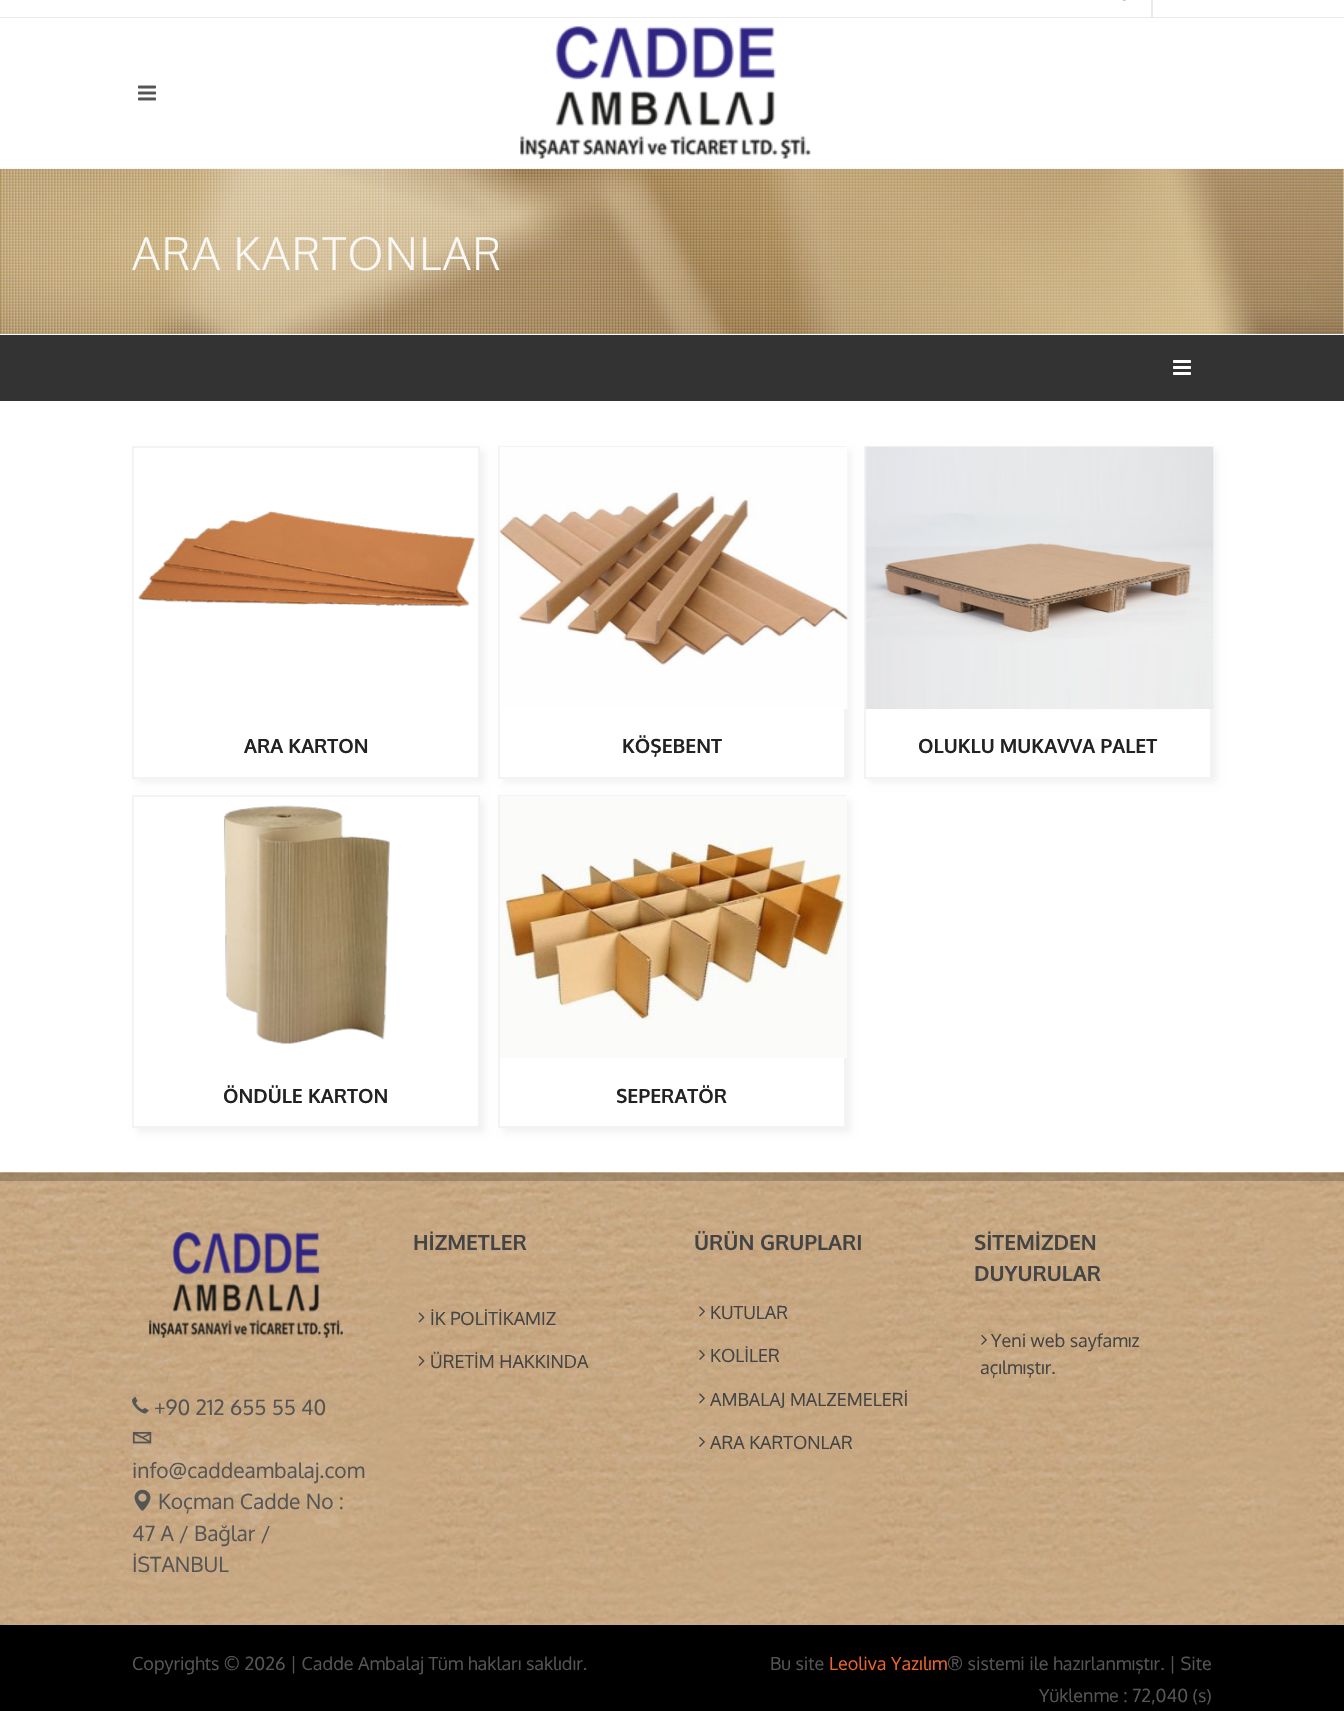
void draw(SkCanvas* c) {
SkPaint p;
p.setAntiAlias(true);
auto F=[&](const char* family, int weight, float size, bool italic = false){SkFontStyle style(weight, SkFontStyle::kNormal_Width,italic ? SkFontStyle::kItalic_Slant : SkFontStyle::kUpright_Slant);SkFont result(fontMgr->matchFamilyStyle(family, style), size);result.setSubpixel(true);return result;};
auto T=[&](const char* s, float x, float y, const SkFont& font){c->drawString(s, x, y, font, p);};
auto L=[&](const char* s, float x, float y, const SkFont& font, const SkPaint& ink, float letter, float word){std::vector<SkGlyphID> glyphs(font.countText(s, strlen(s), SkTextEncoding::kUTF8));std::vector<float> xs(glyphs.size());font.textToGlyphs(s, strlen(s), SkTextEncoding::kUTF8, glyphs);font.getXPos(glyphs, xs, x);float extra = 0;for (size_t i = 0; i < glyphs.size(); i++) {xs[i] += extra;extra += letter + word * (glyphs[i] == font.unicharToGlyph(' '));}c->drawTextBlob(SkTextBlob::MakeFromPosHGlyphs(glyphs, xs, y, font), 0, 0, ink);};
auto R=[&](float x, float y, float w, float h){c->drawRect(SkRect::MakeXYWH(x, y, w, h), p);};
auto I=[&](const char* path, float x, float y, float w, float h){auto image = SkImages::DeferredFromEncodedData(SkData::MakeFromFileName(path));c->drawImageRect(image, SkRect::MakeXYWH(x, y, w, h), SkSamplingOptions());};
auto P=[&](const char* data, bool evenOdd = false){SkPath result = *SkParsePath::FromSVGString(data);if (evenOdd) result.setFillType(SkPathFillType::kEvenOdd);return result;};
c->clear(0xffffffff);
p.setColor(0xffeaeaea);
R(0,17,1344,1);
I("1.png",1122,0,4,1);
R(1151,0,2,18);
p.setColor(0xfff5f5f5);
R(0,168,1344,2);
I("2.png",138,85,18,16);
I("3.png",520,26,291,133);
I("4.png",0,169,1344,165);
auto f1 = F("Oxygen",300,45);
p.setColor(0xfffaf8f4);
L("ARA KARTONLAR",132,270,f1,p,1.5,0);
p.setColor(0xff333333);
R(0,335,1344,66);
I("5.png",1173,360,18,15);
c->save();
c->clipPath(P("M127 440h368v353h-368zm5 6h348v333h-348z",true),true);
p.setColor(0xfff3f3f3);
p.setMaskFilter(SkMaskFilter::MakeBlur(kNormal_SkBlurStyle, 3));
c->drawRect(SkRect::MakeXYWH(137,450,348,333),p);
p.setMaskFilter(nullptr);
c->restore();
p.setStroke(true);
p.setStrokeWidth(2);
c->drawRect(SkRect::MakeXYWH(133,447,346,331),p);
I("6.png",138,511,337,96);
auto f2 = F("Oxygen",700,19.5);
p.setStroke(false);
p.setColor(0xff222222);
T("ARA KARTON",244,753,f2);
c->save();
c->clipPath(P("M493 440h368v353h-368zm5 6h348v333h-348z",true),true);
p.setColor(0xfff3f3f3);
p.setMaskFilter(SkMaskFilter::MakeBlur(kNormal_SkBlurStyle, 3));
c->drawRect(SkRect::MakeXYWH(503,450,348,333),p);
p.setMaskFilter(nullptr);
c->restore();
p.setStroke(true);
c->drawRect(SkRect::MakeXYWH(499,447,346,331),p);
I("7.png",499,447,349,262);
p.setStroke(false);
p.setColor(0xff222222);
T("KÖŞEBENT",622,753,f2);
c->save();
c->clipPath(P("M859 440h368v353h-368zm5 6h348v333h-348z",true),true);
p.setColor(0xfff3f3f3);
p.setMaskFilter(SkMaskFilter::MakeBlur(kNormal_SkBlurStyle, 3));
c->drawRect(SkRect::MakeXYWH(869,450,348,333),p);
p.setMaskFilter(nullptr);
c->restore();
p.setStroke(true);
c->drawRect(SkRect::MakeXYWH(865,447,346,331),p);
I("8.png",865,446,349,263);
p.setStroke(false);
p.setColor(0xff222222);
T("OLUKLU MUKAVVA PALET",918,753,f2);
c->save();
c->clipPath(P("M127 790h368v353h-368zm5 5h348v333h-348z",true),true);
p.setColor(0xfff3f3f3);
p.setMaskFilter(SkMaskFilter::MakeBlur(kNormal_SkBlurStyle, 3));
c->drawRect(SkRect::MakeXYWH(137,800,348,333),p);
p.setMaskFilter(nullptr);
c->restore();
p.setStroke(true);
c->drawRect(SkRect::MakeXYWH(133,796,346,331),p);
I("9.png",223,805,167,239);
p.setStroke(false);
p.setColor(0xff222222);
T("ÖNDÜLE KARTON",223,1103,f2);
c->save();
c->clipPath(P("M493 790h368v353h-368zm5 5h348v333h-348z",true),true);
p.setColor(0xfff3f3f3);
p.setMaskFilter(SkMaskFilter::MakeBlur(kNormal_SkBlurStyle, 3));
c->drawRect(SkRect::MakeXYWH(503,800,348,333),p);
p.setMaskFilter(nullptr);
c->restore();
p.setStroke(true);
c->drawRect(SkRect::MakeXYWH(499,796,346,331),p);
I("10.png",500,796,347,262);
p.setStroke(false);
p.setColor(0xff222222);
T("SEPERATÖR",616,1103,f2);
I("11.png",0,1172,1344,453);
p.setColor(0x33000000);
R(0,1173,1344,8);
auto f3 = F("Oxygen",700,21);
p.setColor(0xff444444);
T("HİZMETLER",413,1250,f3);
I("12.png",418,1312,7,11);
auto f4 = F("Oxygen",400,18);
T("İK POLİTİKAMIZ",430,1325,f4);
I("13.png",418,1356,7,10);
T("ÜRETİM HAKKINDA",430,1368,f4);
T("ÜRÜN GRUPLARI",694,1250,f3);
I("14.png",699,1306,6,11);
T("KUTULAR",710,1319,f4);
I("15.png",699,1350,6,10);
T("KOLİLER",710,1362,f4);
I("16.png",699,1393,6,11);
T("AMBALAJ MALZEMELERİ",710,1406,f4);
I("17.png",699,1437,6,10);
T("ARA KARTONLAR",710,1449,f4);
T("SİTEMİZDEN",974,1250,f3);
T("DUYURULAR",974,1281,f3);
I("18.png",981,1335,6,10);
T("Yeni web sayfamız",991,1347,f4);
T("açılmıştır.",980,1374,f4);
I("19.png",149,1232,194,106);
I("20.png",132,1426,232,116);
I("21.png",132,1396,17,18);
auto f5 = F("Oxygen",400,21);
p.setColor(0xff555555);
T("+90 212 655 55 40",154,1415,f5);
I("22.png",132,1432,20,12);
T("info@caddeambalaj.com",132,1478,f5);
I("23.png",134,1489,17,22);
T("Koçman Cadde No :",158,1509,f5);
T("47 A / Bağlar /",132,1541,f5);
T("İSTANBUL",132,1572,f5);
p.setColor(0xff000000);
R(0,1625,1344,86);
p.setColor(0xff555555);
T("Copyrights © 2026 | Cadde Ambalaj Tüm hakları saklıdır.",132,1670,f4);
T("Bu site",770,1670,f4);
p.setColor(0xffec652d);
T("Leoliva Yazılım",829,1670,f4);
p.setColor(0xff555555);
T("® sistemi ile hazırlanmıştır. | Site",947,1670,f4);
T("Yüklenme : 72,040 (s)",1039,1702,f4);
}
